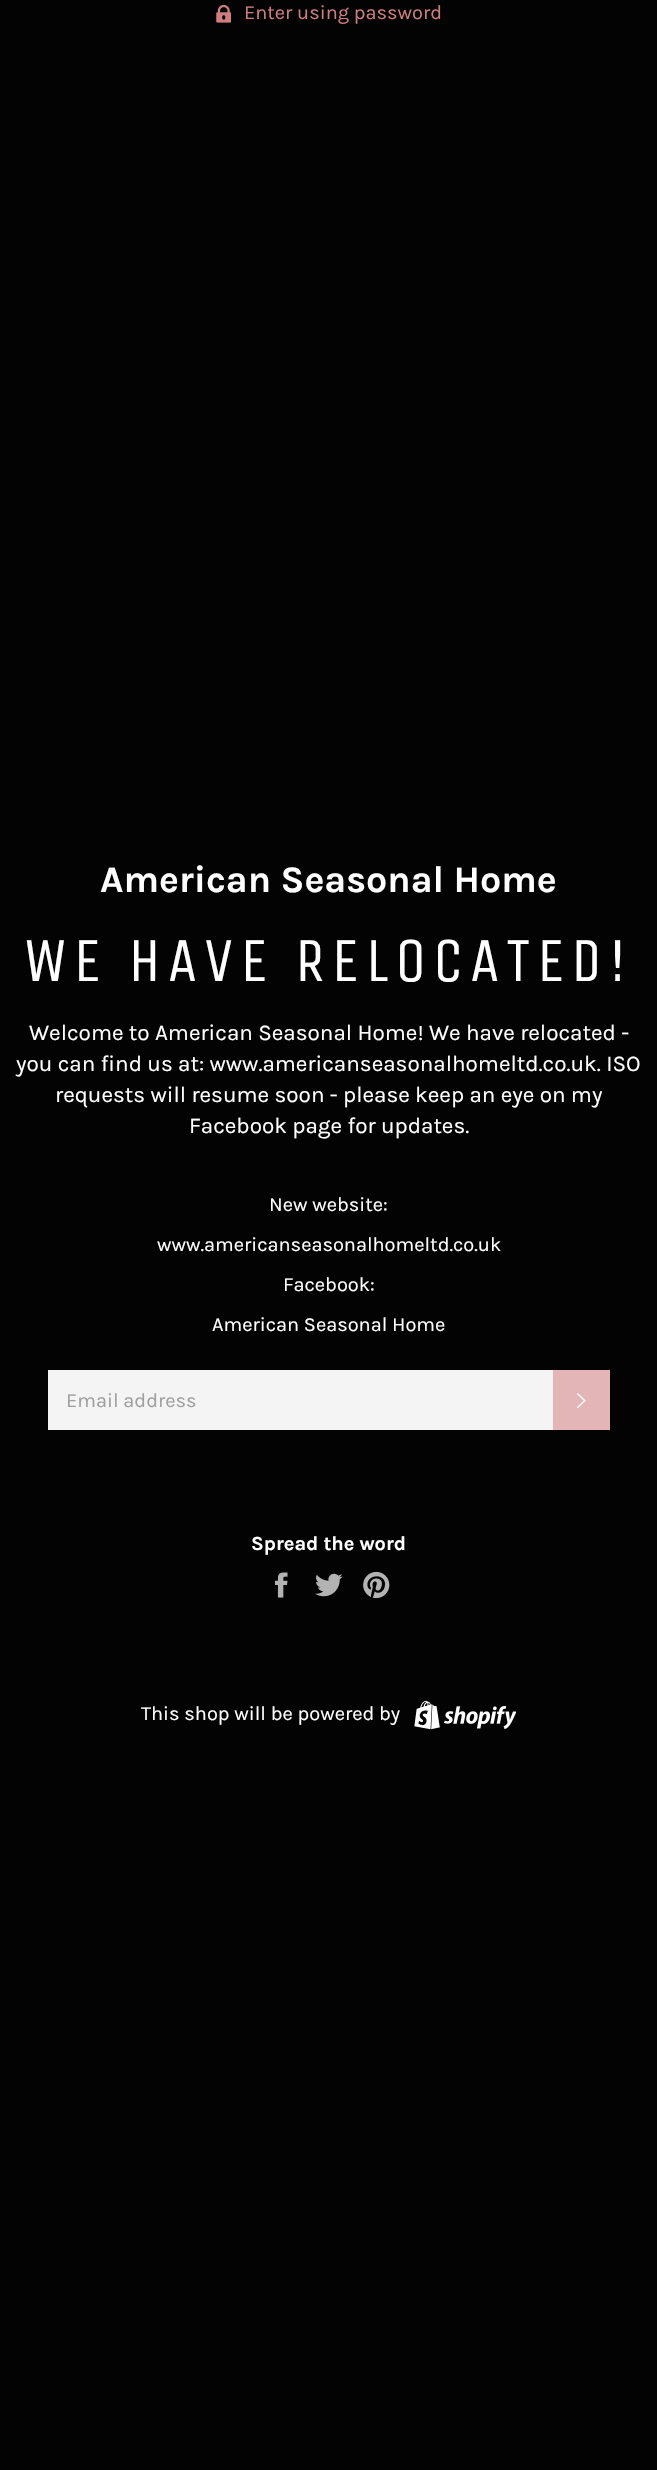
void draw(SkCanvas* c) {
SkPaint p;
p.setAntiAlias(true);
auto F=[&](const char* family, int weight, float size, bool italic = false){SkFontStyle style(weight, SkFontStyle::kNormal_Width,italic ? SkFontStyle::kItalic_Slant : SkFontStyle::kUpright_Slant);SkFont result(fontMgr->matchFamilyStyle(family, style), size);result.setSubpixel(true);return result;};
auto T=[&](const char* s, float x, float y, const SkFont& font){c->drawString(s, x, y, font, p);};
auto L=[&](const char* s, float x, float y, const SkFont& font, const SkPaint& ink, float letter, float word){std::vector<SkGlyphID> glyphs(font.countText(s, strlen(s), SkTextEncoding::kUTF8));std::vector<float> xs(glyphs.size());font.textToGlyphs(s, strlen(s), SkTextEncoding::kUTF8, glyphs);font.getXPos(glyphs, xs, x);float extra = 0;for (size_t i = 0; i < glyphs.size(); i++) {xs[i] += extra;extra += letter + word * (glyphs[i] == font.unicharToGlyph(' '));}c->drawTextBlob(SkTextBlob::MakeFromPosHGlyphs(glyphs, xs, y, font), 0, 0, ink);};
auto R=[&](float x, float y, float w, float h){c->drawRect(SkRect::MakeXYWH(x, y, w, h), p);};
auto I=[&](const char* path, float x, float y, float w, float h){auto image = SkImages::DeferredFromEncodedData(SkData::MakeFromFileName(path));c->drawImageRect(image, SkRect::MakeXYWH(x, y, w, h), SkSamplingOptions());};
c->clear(0xff030303);
I("1.png",216,4,15,19);
auto f1 = F("Karla",400,20);
p.setColor(0xffce7e7f);
T("Enter using password",244,19,f1);
auto f2 = F("Karla",700,37.5);
p.setColor(0xffffffff);
T("American Seasonal Home",100,892,f2);
auto f3 = F("Unica One",400,62.5);
L("WE HAVE RELOCATED!",24,981,f3,p,6.25,0);
auto f4 = F("Karla",400,22.5);
T("Welcome to American Seasonal Home! We have relocated -",29,1040,f4);
T("you can find us at: www.americanseasonalhomeltd.co.uk. ISO",16,1071,f4);
T("requests will resume soon - please keep an eye on my",55,1102,f4);
T("Facebook page for updates.",189,1133,f4);
T("New website:",269,1211,f1);
T("www.americanseasonalhomeltd.co.uk",157,1251,f1);
T("Facebook:",283,1291,f1);
T("American Seasonal Home",212,1331,f1);
p.setColor(0xfff4f4f4);
R(48,1370,505,60);
p.setColor(0xff9f9f9f);
T("Email address",66,1407,f1);
p.setColor(0xffe3b5b6);
R(553,1370,57,60);
I("2.png",576,1393,10,15);
auto f5 = F("Karla",700,20);
p.setColor(0xffffffff);
T("Spread the word",251,1550,f5);
I("3.png",275,1572,13,26);
I("4.png",315,1573,28,24);
I("5.png",363,1571,27,28);
T("This shop will be powered by",141,1720,f1);
I("6.png",414,1700,102,30);
}
